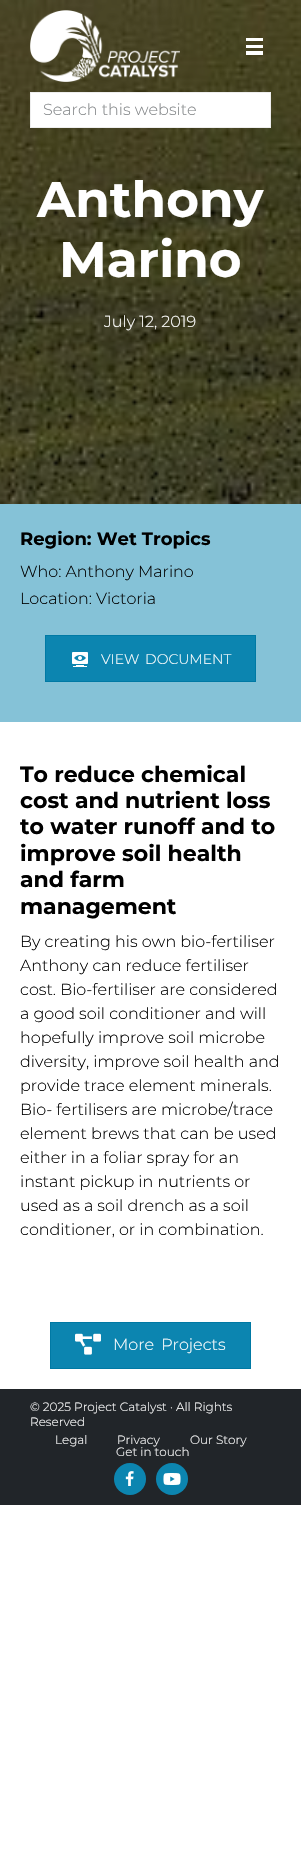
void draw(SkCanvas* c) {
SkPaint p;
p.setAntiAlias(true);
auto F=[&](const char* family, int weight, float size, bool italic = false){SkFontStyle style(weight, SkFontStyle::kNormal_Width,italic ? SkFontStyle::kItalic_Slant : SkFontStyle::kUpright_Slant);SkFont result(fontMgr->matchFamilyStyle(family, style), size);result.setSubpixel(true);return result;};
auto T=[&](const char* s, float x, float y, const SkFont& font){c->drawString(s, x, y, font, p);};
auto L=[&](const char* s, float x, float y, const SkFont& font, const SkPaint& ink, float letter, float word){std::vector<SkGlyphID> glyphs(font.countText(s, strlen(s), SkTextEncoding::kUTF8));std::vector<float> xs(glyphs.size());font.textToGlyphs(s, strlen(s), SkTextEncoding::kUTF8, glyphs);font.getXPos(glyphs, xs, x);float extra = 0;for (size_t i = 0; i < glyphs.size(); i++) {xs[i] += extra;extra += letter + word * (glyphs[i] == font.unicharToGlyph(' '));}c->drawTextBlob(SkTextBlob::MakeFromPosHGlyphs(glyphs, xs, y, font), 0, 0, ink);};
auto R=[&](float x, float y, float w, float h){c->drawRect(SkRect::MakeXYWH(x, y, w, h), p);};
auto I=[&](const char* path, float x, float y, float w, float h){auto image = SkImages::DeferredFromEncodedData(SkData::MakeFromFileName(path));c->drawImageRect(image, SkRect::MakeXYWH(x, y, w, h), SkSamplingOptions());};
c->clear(0xffffffff);
I("2.png",0,0,301,504);
I("1.png",30,10,150,72);
p.setColor(0xffffffff);
R(246,38,17,3);
R(246,45,17,3);
R(246,51,17,4);
c->drawRect(SkRect::MakeXYWH(30.5,92.5,240,35),p);
p.setStroke(true);
p.setStrokeWidth(1);
p.setColor(0xffeeeeee);
c->drawRect(SkRect::MakeXYWH(30.5,92.5,240,35),p);
auto f1 = F("Montserrat",300,16);
p.setStroke(false);
p.setColor(0xff85888a);
T("Search this website",43,115,f1);
auto f2 = F("Montserrat",700,50);
p.setColor(0xffffffff);
T("Anthony",37,217,f2);
T("Marino",59,277,f2);
T("July 12, 2019",104,327,f1);
p.setColor(0xff85c2d7);
R(0,504,301,218);
auto f3 = F("Montserrat",700,18);
p.setColor(0xff000000);
T("Region: Wet Tropics",20,545,f3);
T("Who: Anthony Marino",20,577,f1);
T("Location: Victoria",20,604,f1);
p.setColor(0xff0c85b0);
c->drawRect(SkRect::MakeXYWH(45.5,635.5,210,46),p);
p.setStroke(true);
p.setColor(0xff0079a4);
c->drawRect(SkRect::MakeXYWH(45.5,635.5,210,46),p);
I("3.png",72,652,16,15);
auto f4 = F("Montserrat",300,14);
p.setStroke(false);
p.setColor(0xffffffff);
L("VIEW DOCUMENT",101,664,f4,p,0,2);
auto f5 = F("Montserrat",700,22);
p.setColor(0xff000000);
T("To reduce chemical",20,782,f5);
T("cost and nutrient loss",20,808,f5);
T("to water runoff and to",20,834,f5);
T("improve soil health",20,861,f5);
T("and farm",20,887,f5);
T("management",20,914,f5);
T("By creating his own bio-fertiliser",20,947,f1);
T("Anthony can reduce fertiliser",20,971,f1);
T("cost. Bio-fertiliser are considered",20,995,f1);
T("a good soil conditioner and will",20,1019,f1);
T("hopefully improve soil microbe",20,1043,f1);
T("diversity, improve soil health and",20,1067,f1);
T("provide trace element minerals.",20,1091,f1);
T("Bio- fertilisers are microbe/trace",20,1115,f1);
T("element brews that can be used",20,1139,f1);
T("either in a foliar spray for an",20,1163,f1);
T("instant pickup in nutrients or",20,1187,f1);
T("used as a soil drench as a soil",20,1211,f1);
T("conditioner, or in combination.",20,1235,f1);
p.setColor(0xff0c85b0);
c->drawRect(SkRect::MakeXYWH(50.5,1322.5,200,46),p);
p.setStroke(true);
p.setColor(0xff0079a4);
c->drawRect(SkRect::MakeXYWH(50.5,1322.5,200,46),p);
I("4.png",75,1333,26,22);
p.setStroke(false);
p.setColor(0xffffffff);
L("More Projects",113,1350,f1,p,0,3);
p.setColor(0xff212529);
R(0,1389,301,116);
auto f6 = F("Montserrat",300,12);
p.setColor(0xffffffff);
T("© 2025 Project Catalyst · All Rights",30,1411,f6);
T("Reserved",30,1426,f6);
T("Legal",55,1444,f6);
T("Privacy",117,1444,f6);
T("Our Story",190,1444,f6);
T("Get in touch",116,1456,f6);
p.setColor(0xff0c85b0);
c->drawCircle(130,1479,16,p);
I("5.png",125,1471,9,15);
c->drawCircle(172,1479,16,p);
I("6.png",163,1473,18,12);
}
